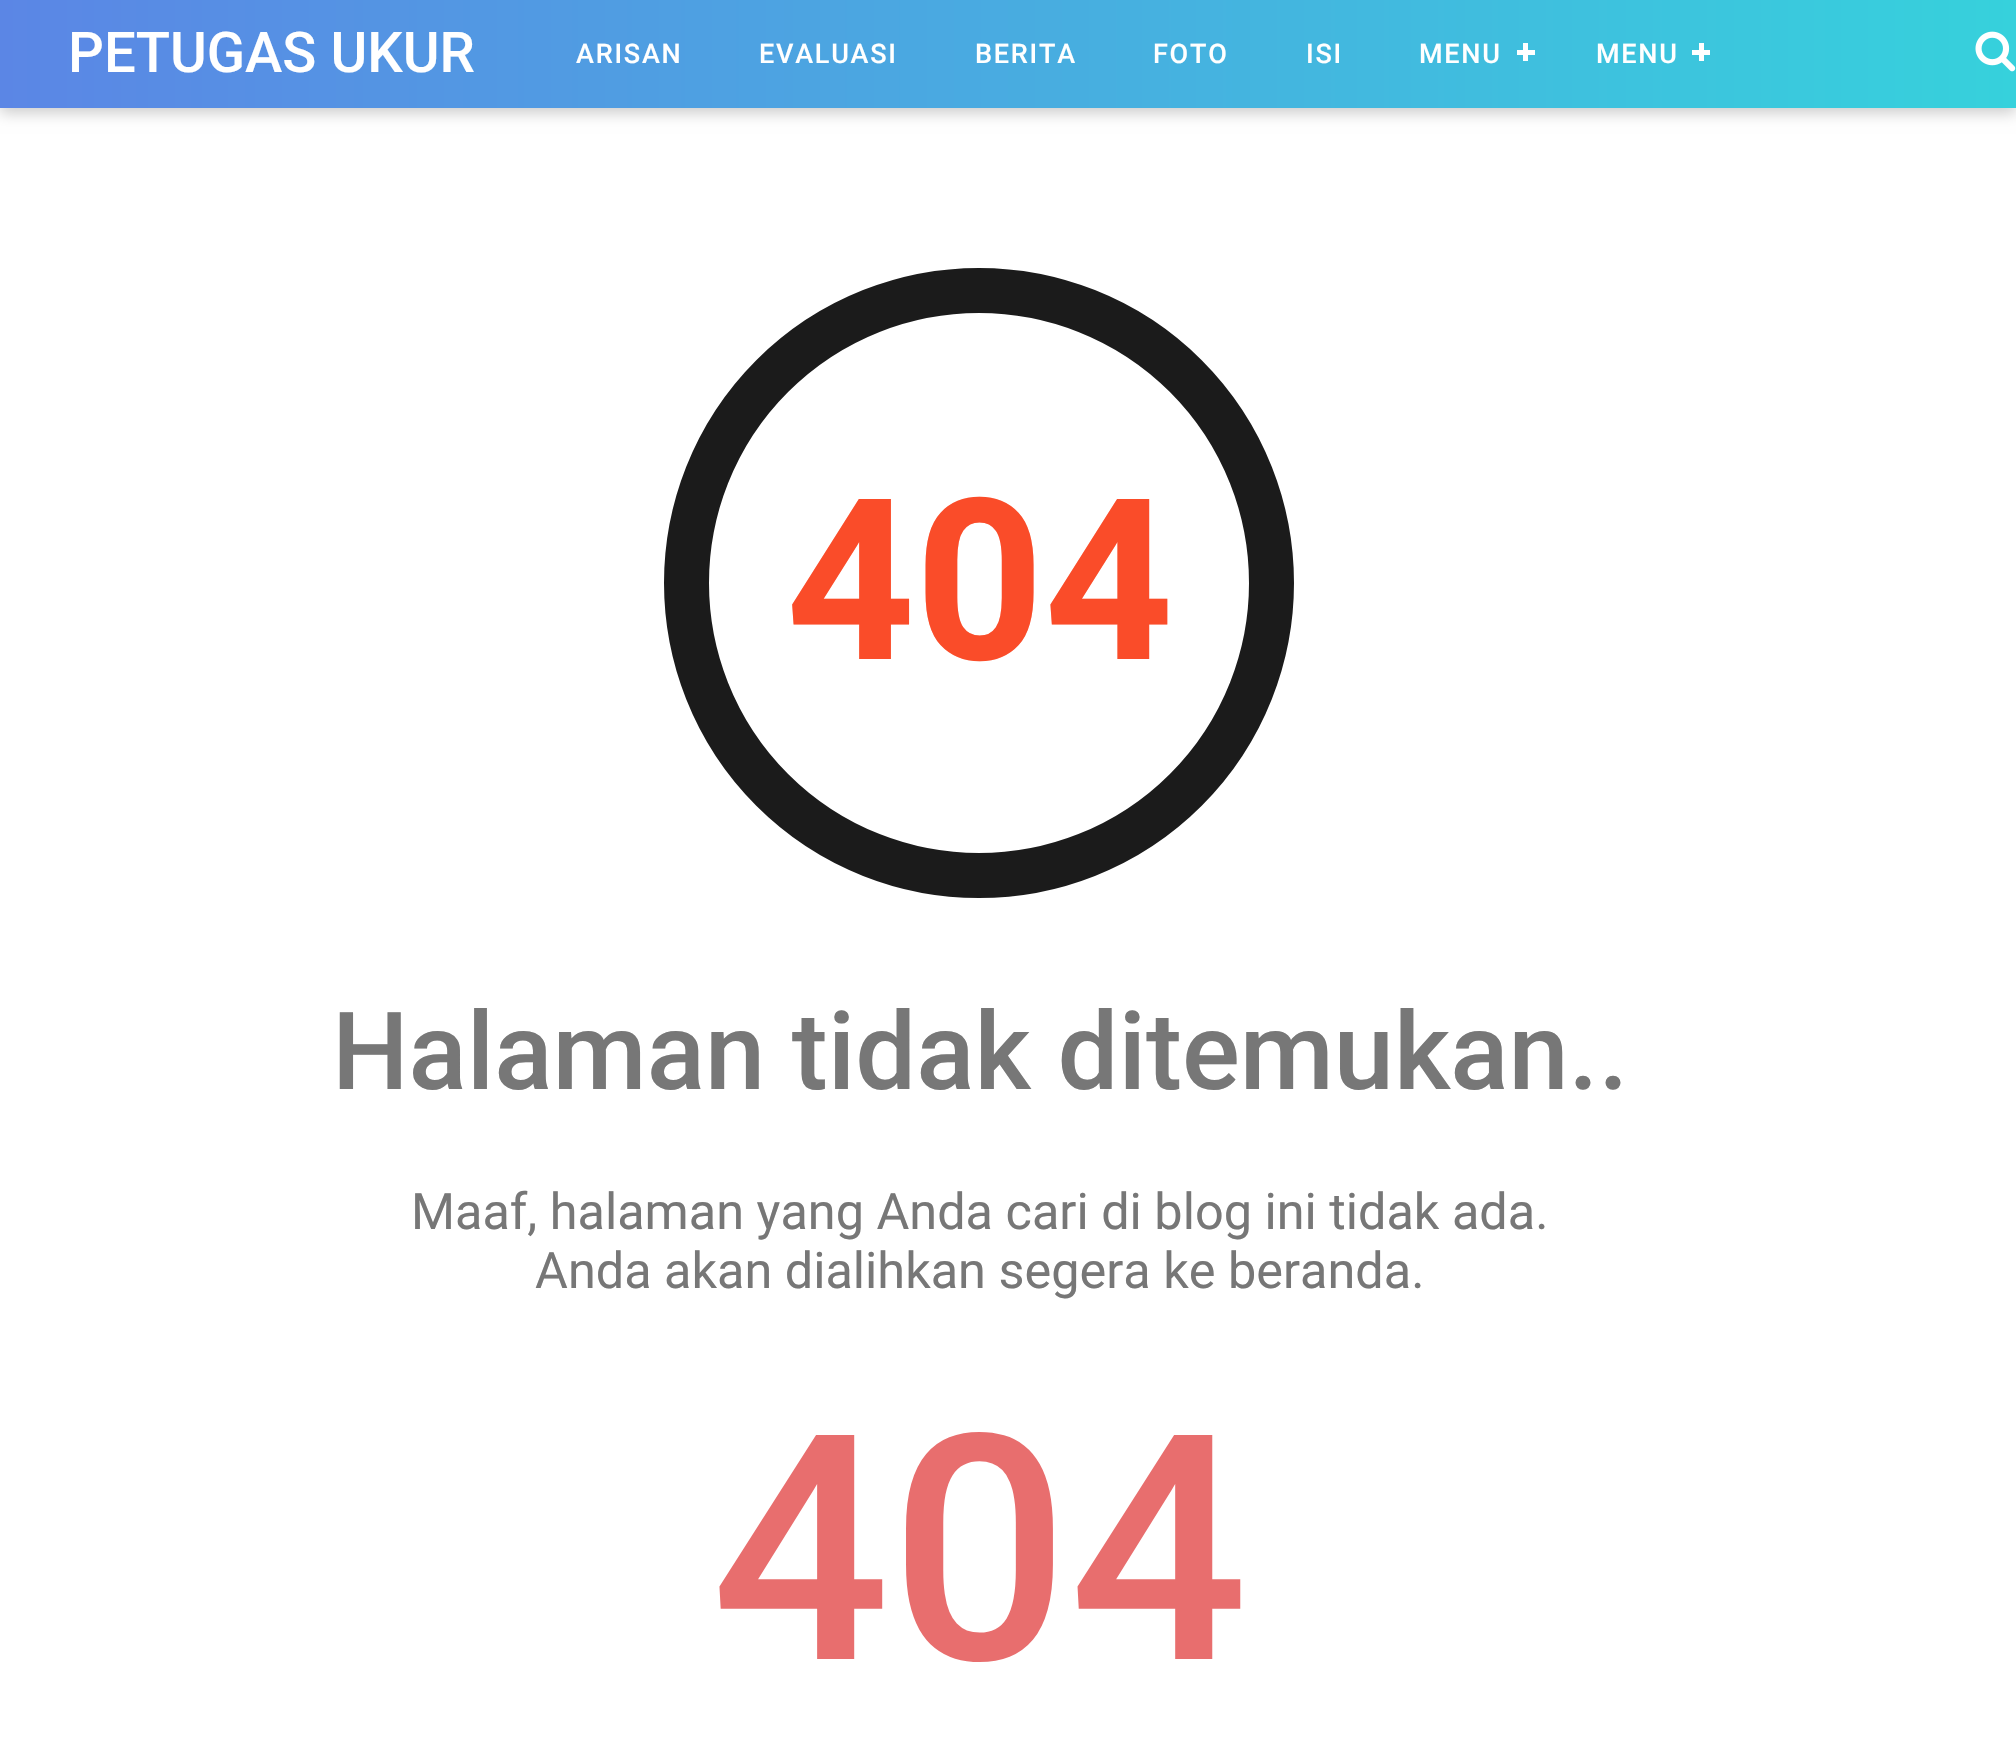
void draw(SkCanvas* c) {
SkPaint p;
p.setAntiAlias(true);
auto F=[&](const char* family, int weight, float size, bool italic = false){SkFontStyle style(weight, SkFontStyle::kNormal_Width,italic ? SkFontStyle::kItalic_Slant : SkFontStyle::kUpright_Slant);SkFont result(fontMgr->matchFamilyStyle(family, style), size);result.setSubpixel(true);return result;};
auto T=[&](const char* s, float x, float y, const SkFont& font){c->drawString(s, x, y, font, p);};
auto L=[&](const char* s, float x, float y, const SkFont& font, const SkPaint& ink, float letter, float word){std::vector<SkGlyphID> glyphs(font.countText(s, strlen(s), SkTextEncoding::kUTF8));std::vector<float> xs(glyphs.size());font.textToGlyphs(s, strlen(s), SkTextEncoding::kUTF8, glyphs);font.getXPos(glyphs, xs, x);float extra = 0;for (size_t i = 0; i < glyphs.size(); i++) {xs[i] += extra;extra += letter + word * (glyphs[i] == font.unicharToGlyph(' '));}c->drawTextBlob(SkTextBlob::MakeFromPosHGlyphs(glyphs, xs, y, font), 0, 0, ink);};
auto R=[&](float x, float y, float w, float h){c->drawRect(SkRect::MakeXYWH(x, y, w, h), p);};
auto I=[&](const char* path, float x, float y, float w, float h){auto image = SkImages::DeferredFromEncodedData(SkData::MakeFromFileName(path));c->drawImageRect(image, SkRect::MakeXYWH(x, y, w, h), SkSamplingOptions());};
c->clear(0xffffffff);
p.setColor(0x33000000);
p.setMaskFilter(SkMaskFilter::MakeBlur(kNormal_SkBlurStyle, 7));
c->drawRect(SkRect::MakeXYWH(0,5,2016,108),p);
p.setMaskFilter(nullptr);
{
const SkColor colors[] = {0xff5b86e5,0xff36d1dc};
const float stops[] = {0,1};
const SkPoint ends[] = {{0,54}, {2016,54}};
p.setShader(SkGradientShader::MakeLinear(ends, colors, stops, 2, SkTileMode::kClamp));
p.setAlpha(255);
}
R(0,0,2016,108);
auto f1 = F("Roboto",500,56.25);
p.setShader(nullptr);
p.setColor(0xffffffff);
T("PETUGAS UKUR",68,72,f1);
auto f2 = F("Roboto",500,27);
L("ARISAN",576,63,f2,p,1.75,0);
L("EVALUASI",759,63,f2,p,1.75,0);
L("BERITA",975,63,f2,p,1.75,0);
L("FOTO",1153,63,f2,p,1.75,0);
L("ISI",1306,63,f2,p,1.75,0);
L("MENU",1419,63,f2,p,1.75,0);
R(1523,43,5,18);
R(1517,50,18,5);
L("MENU",1596,63,f2,p,1.75,0);
R(1699,43,5,18);
R(1692,50,18,5);
I("1.png",1975,31,41,41);
p.setStroke(true);
p.setStrokeWidth(45);
p.setColor(0xff1b1b1b);
c->drawCircle(979,583,292.5,p);
auto f3 = F("Roboto",700,225);
p.setStroke(false);
p.setColor(0xfffa4c29);
T("404",786,659,f3);
auto f4 = F("Roboto",500,108);
p.setColor(0xff777777);
T("Halaman tidak ditemukan..",332,1089,f4);
auto f5 = F("Roboto",400,50.4);
T("Maaf, halaman yang Anda cari di blog ini tidak ada.",411,1229,f5);
T("Anda akan dialihkan segera ke beranda.",535,1288,f5);
auto f6 = F("Roboto",500,315);
p.setColor(0xffe86e6e);
T("404",711,1659,f6);
}
